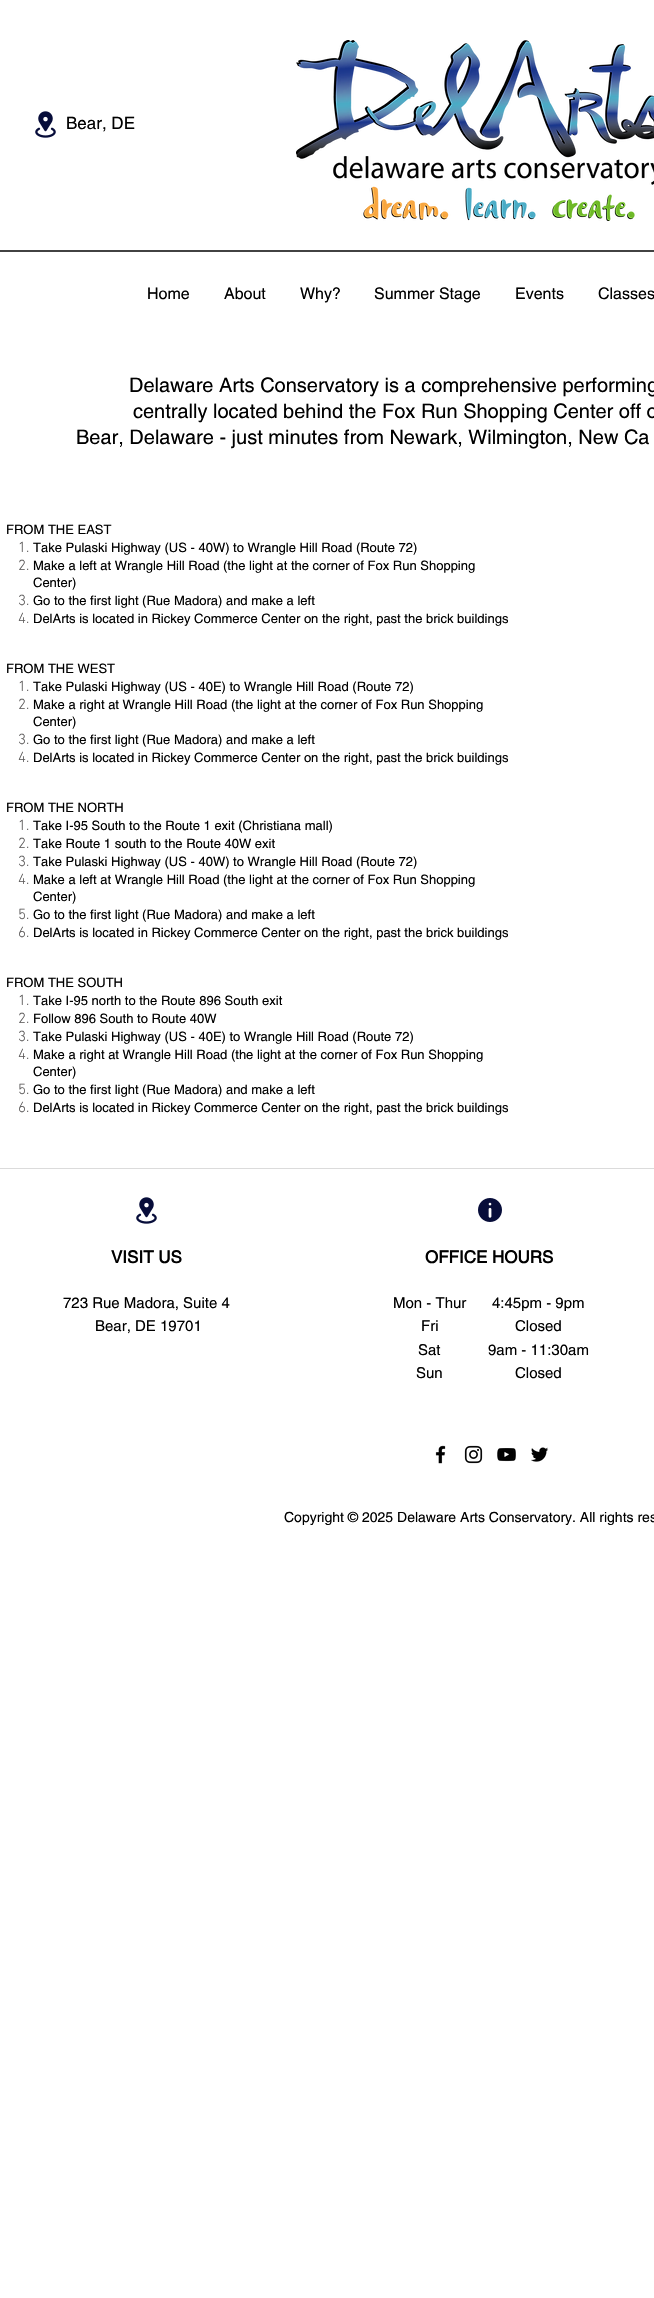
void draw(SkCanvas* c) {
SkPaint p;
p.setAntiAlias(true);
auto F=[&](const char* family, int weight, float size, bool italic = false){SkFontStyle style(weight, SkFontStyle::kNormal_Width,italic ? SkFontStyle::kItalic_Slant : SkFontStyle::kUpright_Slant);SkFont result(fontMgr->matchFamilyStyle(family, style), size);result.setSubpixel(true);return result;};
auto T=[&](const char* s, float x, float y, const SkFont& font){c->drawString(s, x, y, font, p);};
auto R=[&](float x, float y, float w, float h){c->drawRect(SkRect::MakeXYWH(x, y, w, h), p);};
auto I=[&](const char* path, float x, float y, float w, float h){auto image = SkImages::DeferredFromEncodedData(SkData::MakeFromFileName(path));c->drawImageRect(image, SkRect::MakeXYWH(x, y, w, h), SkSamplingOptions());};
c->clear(0xffffffff);
I("1.png",35,111,21,27);
auto f1 = F("helvetica",400,17);
p.setColor(0xff000000);
T("Bear, DE",66,129,f1);
I("2.png",296,40,358,181);
p.setColor(0xff424242);
R(0,250,654,2);
auto f2 = F("helvetica",400,16);
p.setColor(0xff000000);
T("Home",147,299,f2);
T("About",224,299,f2);
T("Why?",300,299,f2);
T("Summer Stage",374,299,f2);
T("Events",515,299,f2);
T("Classes",598,299,f2);
auto f3 = F("helvetica",400,20);
T("Delaware Arts Conservatory is a comprehensive performing",129,392,f3);
T("centrally located behind the Fox Run Shopping Center off o",133,418,f3);
T("Bear, Delaware - just minutes from Newark, Wilmington, New Ca",76,444,f3);
auto f4 = F("helvetica",400,13);
T("FROM THE EAST",6,534,f4);
auto f5 = F("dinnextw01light",300,15);
p.setColor(0xff605e5e);
T("1.",18,552,f5);
p.setColor(0xff000000);
T("Take Pulaski Highway (US - 40W) to Wrangle Hill Road (Route 72)",33,552,f4);
p.setColor(0xff605e5e);
T("2.",18,570,f5);
p.setColor(0xff000000);
T("Make a left at Wrangle Hill Road (the light at the corner of Fox Run Shopping",33,570,f4);
T("Center)",33,587,f4);
p.setColor(0xff605e5e);
T("3.",18,605,f5);
p.setColor(0xff000000);
T("Go to the first light (Rue Madora) and make a left",33,605,f4);
p.setColor(0xff605e5e);
T("4.",18,623,f5);
p.setColor(0xff000000);
T("DelArts is located in Rickey Commerce Center on the right, past the brick buildings",33,623,f4);
T("FROM THE WEST",6,673,f4);
p.setColor(0xff605e5e);
T("1.",18,691,f5);
p.setColor(0xff000000);
T("Take Pulaski Highway (US - 40E) to Wrangle Hill Road (Route 72)",33,691,f4);
p.setColor(0xff605e5e);
T("2.",18,709,f5);
p.setColor(0xff000000);
T("Make a right at Wrangle Hill Road (the light at the corner of Fox Run Shopping",33,709,f4);
T("Center)",33,726,f4);
p.setColor(0xff605e5e);
T("3.",18,744,f5);
p.setColor(0xff000000);
T("Go to the first light (Rue Madora) and make a left",33,744,f4);
p.setColor(0xff605e5e);
T("4.",18,762,f5);
p.setColor(0xff000000);
T("DelArts is located in Rickey Commerce Center on the right, past the brick buildings",33,762,f4);
T("FROM THE NORTH",6,812,f4);
p.setColor(0xff605e5e);
T("1.",18,830,f5);
p.setColor(0xff000000);
T("Take I-95 South to the Route 1 exit (Christiana mall)",33,830,f4);
p.setColor(0xff605e5e);
T("2.",18,848,f5);
p.setColor(0xff000000);
T("Take Route 1 south to the Route 40W exit",33,848,f4);
p.setColor(0xff605e5e);
T("3.",18,866,f5);
p.setColor(0xff000000);
T("Take Pulaski Highway (US - 40W) to Wrangle Hill Road (Route 72)",33,866,f4);
p.setColor(0xff605e5e);
T("4.",18,884,f5);
p.setColor(0xff000000);
T("Make a left at Wrangle Hill Road (the light at the corner of Fox Run Shopping",33,884,f4);
T("Center)",33,901,f4);
p.setColor(0xff605e5e);
T("5.",18,919,f5);
p.setColor(0xff000000);
T("Go to the first light (Rue Madora) and make a left",33,919,f4);
p.setColor(0xff605e5e);
T("6.",18,937,f5);
p.setColor(0xff000000);
T("DelArts is located in Rickey Commerce Center on the right, past the brick buildings",33,937,f4);
T("FROM THE SOUTH",6,987,f4);
p.setColor(0xff605e5e);
T("1.",18,1005,f5);
p.setColor(0xff000000);
T("Take I-95 north to the Route 896 South exit",33,1005,f4);
p.setColor(0xff605e5e);
T("2.",18,1023,f5);
p.setColor(0xff000000);
T("Follow 896 South to Route 40W",33,1023,f4);
p.setColor(0xff605e5e);
T("3.",18,1041,f5);
p.setColor(0xff000000);
T("Take Pulaski Highway (US - 40E) to Wrangle Hill Road (Route 72)",33,1041,f4);
p.setColor(0xff605e5e);
T("4.",18,1059,f5);
p.setColor(0xff000000);
T("Make a right at Wrangle Hill Road (the light at the corner of Fox Run Shopping",33,1059,f4);
T("Center)",33,1076,f4);
p.setColor(0xff605e5e);
T("5.",18,1094,f5);
p.setColor(0xff000000);
T("Go to the first light (Rue Madora) and make a left",33,1094,f4);
p.setColor(0xff605e5e);
T("6.",18,1112,f5);
p.setColor(0xff000000);
T("DelArts is located in Rickey Commerce Center on the right, past the brick buildings",33,1112,f4);
p.setColor(0xffdbdbdb);
R(0,1168,654,1);
I("1.png",136,1197,21,27);
I("3.png",478,1198,24,24);
auto f6 = F("helvetica",700,17);
p.setColor(0xff000000);
T("VISIT US",111,1263,f6);
T("OFFICE HOURS",425,1263,f6);
auto f7 = F("helvetica",400,15);
T("723 Rue Madora, Suite 4",63,1308,f7);
T("Bear, DE 19701",95,1331,f7);
T("Mon - Thur",393,1308,f7);
T("Fri",421,1331,f7);
T("Sat",418,1355,f7);
T("Sun",416,1378,f7);
T("4:45pm - 9pm",492,1308,f7);
T("Closed",515,1331,f7);
T("9am - 11:30am",488,1355,f7);
T("Closed",515,1378,f7);
I("4.png",435,1445,11,19);
I("5.png",464,1445,19,19);
I("6.png",497,1448,19,14);
I("7.png",531,1447,18,15);
auto f8 = F("helvetica",400,14);
T("Copyright © 2025 Delaware Arts Conservatory. All rights res",284,1522,f8);
}
